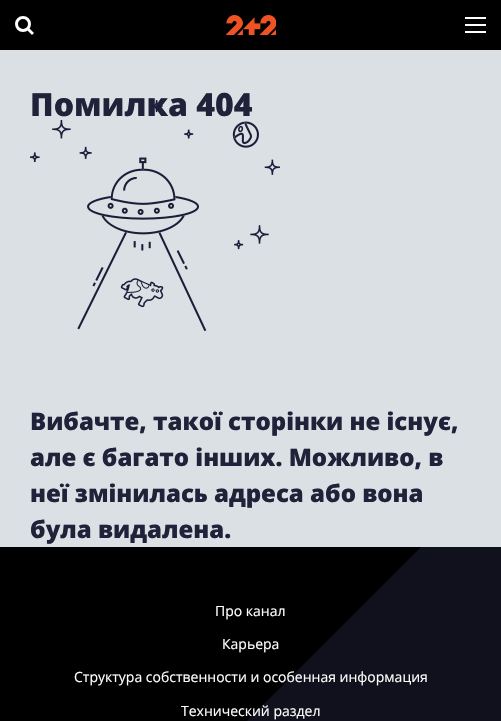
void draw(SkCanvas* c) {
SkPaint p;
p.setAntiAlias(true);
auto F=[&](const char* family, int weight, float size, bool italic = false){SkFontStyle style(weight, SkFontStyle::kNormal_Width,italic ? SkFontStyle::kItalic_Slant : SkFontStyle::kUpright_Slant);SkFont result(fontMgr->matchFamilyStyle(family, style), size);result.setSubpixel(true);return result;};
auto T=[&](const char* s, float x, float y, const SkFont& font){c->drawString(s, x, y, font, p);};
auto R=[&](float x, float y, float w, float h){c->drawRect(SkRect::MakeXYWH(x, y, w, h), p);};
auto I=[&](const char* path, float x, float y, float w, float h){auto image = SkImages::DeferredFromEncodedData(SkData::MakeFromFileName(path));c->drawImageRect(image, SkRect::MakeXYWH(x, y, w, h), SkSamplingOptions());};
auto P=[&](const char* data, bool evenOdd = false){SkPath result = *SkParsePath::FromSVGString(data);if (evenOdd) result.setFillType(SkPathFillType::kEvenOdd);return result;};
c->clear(0xffdae0e4);
p.setColor(0xff000000);
R(0,0,501,50);
p.setStroke(true);
p.setStrokeWidth(3);
p.setColor(0xffffffff);
c->drawCircle(23,24,6.5,p);
p.setStroke(false);
c->drawPath(P("M27 30l2-2l5 5l-2 2z"),p);
I("1.png",226,15,50,20);
R(465,17,21,2);
R(465,24,21,2);
R(465,31,21,2);
auto f1 = F("Open Sans",800,32);
p.setColor(0xff1f2239);
T("Помилка 404",30,116,f1);
I("2.png",30,100,250,231);
auto f2 = F("Open Sans",800,24);
T("Вибачте, такої сторінки не існує,",30,430,f2);
T("але є багато інших. Можливо, в",30,466,f2);
T("неї змінилась адреса або вона",30,502,f2);
T("була видалена.",30,538,f2);
p.setColor(0xff000000);
R(0,547,421,174);
p.setColor(0xff10111d);
c->drawPath(P("M421 547h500l-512 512h-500z"),p);
auto f3 = F("Open Sans",400,14);
p.setColor(0xffffffff);
T("Про канал",215,616,f3);
T("Карьера",222,649,f3);
T("Структура собственности и особенная информация",74,682,f3);
T("Технический раздел",181,716,f3);
}
